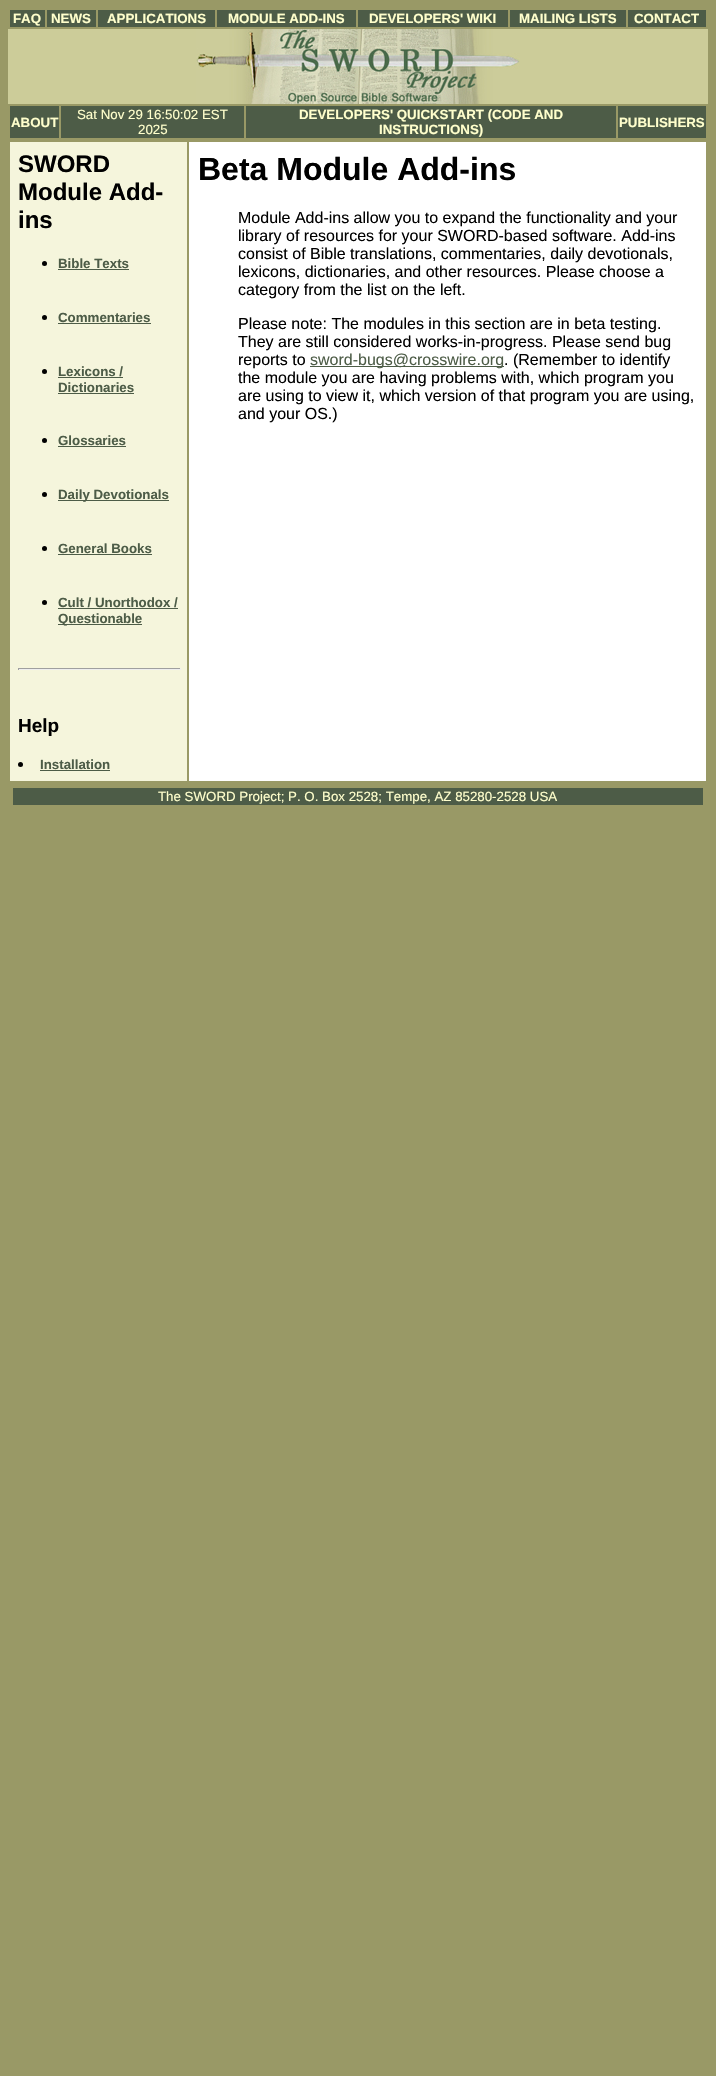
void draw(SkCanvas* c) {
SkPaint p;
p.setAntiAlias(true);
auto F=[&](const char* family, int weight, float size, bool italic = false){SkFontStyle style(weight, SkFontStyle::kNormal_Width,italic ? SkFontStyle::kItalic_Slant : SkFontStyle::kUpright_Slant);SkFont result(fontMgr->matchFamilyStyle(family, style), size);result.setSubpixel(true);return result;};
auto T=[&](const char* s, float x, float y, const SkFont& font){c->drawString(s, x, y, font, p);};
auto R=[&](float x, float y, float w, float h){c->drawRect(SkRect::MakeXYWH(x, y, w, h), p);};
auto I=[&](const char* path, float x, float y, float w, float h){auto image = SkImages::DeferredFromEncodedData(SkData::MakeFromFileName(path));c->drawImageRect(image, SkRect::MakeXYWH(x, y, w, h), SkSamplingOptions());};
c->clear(0xff999966);
p.setColor(0xff4d5c47);
R(10,10,35,17);
auto f1 = F("Liberation Sans",700,13.3);
p.setColor(0xffffffcc);
T("FAQ",13,23,f1);
p.setColor(0xff4d5c47);
R(47,10,49,17);
p.setColor(0xffffffcc);
T("NEWS",51,23,f1);
p.setColor(0xff4d5c47);
R(98,10,117,17);
p.setColor(0xffffffcc);
T("APPLICATIONS",107,23,f1);
p.setColor(0xff4d5c47);
R(217,10,139,17);
p.setColor(0xffffffcc);
T("MODULE ADD-INS",228,23,f1);
p.setColor(0xff4d5c47);
R(358,10,150,17);
p.setColor(0xffffffcc);
T("DEVELOPERS' WIKI",369,23,f1);
p.setColor(0xff4d5c47);
R(510,10,116,17);
p.setColor(0xffffffcc);
T("MAILING LISTS",519,23,f1);
p.setColor(0xff4d5c47);
R(628,10,78,17);
p.setColor(0xffffffcc);
T("CONTACT",634,23,f1);
p.setColor(0xffcccc99);
R(8,29,700,75);
I("1.png",196,29,324,75);
p.setColor(0xff4d5c47);
R(10,106,49,32);
p.setColor(0xffffffcc);
T("ABOUT",11,127,f1);
p.setColor(0xff4d5c47);
R(61,106,183,32);
auto f2 = F("Liberation Sans",400,13.3);
p.setColor(0xffffffcc);
T("Sat Nov 29 16:50:02 EST",77,119,f2);
T("2025",138,134,f2);
p.setColor(0xff4d5c47);
R(246,106,370,32);
p.setColor(0xffffffcc);
T("DEVELOPERS' QUICKSTART (CODE AND",299,119,f1);
T("INSTRUCTIONS)",379,134,f1);
p.setColor(0xff4d5c47);
R(618,106,88,32);
p.setColor(0xffffffcc);
T("PUBLISHERS",619,127,f1);
p.setColor(0xfff5f5dc);
R(10,142,177,639);
auto f3 = F("Liberation Sans",700,24);
p.setColor(0xff000000);
T("SWORD",18,172,f3);
T("Module Add-",18,200,f3);
T("ins",18,228,f3);
c->drawCircle(44.5,263.5,2.5,p);
p.setColor(0xff4d5c47);
T("Bible Texts",58,268,f1);
R(58,269,71,1);
p.setColor(0xff000000);
c->drawCircle(44.5,317.5,2.5,p);
p.setColor(0xff4d5c47);
T("Commentaries",58,322,f1);
R(58,323,93,1);
p.setColor(0xff000000);
c->drawCircle(44.5,371.5,2.5,p);
p.setColor(0xff4d5c47);
T("Lexicons /",58,376,f1);
R(58,377,65,1);
T("Dictionaries",58,392,f1);
R(58,393,76,1);
p.setColor(0xff000000);
c->drawCircle(44.5,440.5,2.5,p);
p.setColor(0xff4d5c47);
T("Glossaries",58,445,f1);
R(58,446,68,1);
p.setColor(0xff000000);
c->drawCircle(44.5,494.5,2.5,p);
p.setColor(0xff4d5c47);
R(58,500,111,1);
T("Daily Devotionals",58,499,f1);
p.setColor(0xff000000);
c->drawCircle(44.5,548.5,2.5,p);
p.setColor(0xff4d5c47);
T("General Books",58,553,f1);
R(58,554,94,1);
p.setColor(0xff000000);
c->drawCircle(44.5,602.5,2.5,p);
p.setColor(0xff4d5c47);
T("Cult / Unorthodox /",58,607,f1);
R(58,608,120,1);
R(58,624,84,1);
T("Questionable",58,623,f1);
p.setColor(0xff9f9f9f);
R(18,668,163,1);
p.setColor(0xffeeeeee);
R(180,668,1,2);
R(18,669,163,1);
p.setColor(0xff9f9f9f);
R(18,668,1,2);
auto f4 = F("Liberation Sans",700,19);
p.setColor(0xff000000);
T("Help",18,732,f4);
c->drawCircle(20.5,764.5,2.5,p);
p.setColor(0xff4d5c47);
T("Installation",40,769,f1);
R(40,770,70,1);
p.setColor(0xffffffff);
R(189,142,517,639);
auto f5 = F("Liberation Sans",700,32);
p.setColor(0xff000000);
T("Beta Module Add-ins",198,180,f5);
auto f6 = F("Liberation Sans",400,16);
T("Module Add-ins allow you to expand the functionality and your",238,223,f6);
T("library of resources for your SWORD-based software. Add-ins",238,241,f6);
T("consist of Bible translations, commentaries, daily devotionals,",238,259,f6);
T("lexicons, dictionaries, and other resources. Please choose a",238,277,f6);
T("category from the list on the left.",238,295,f6);
T("Please note: The modules in this section are in beta testing.",238,329,f6);
T("They are still considered works-in-progress. Please send bug",238,347,f6);
T("reports to",238,365,f6);
p.setColor(0xff4d5c47);
R(310,366,194,1);
T("sword-bugs@crosswire.org",310,365,f6);
p.setColor(0xff000000);
T(". (Remember to identify",504,365,f6);
T("the module you are having problems with, which program you",238,383,f6);
T("are using to view it, which version of that program you are using,",238,401,f6);
T("and your OS.)",238,419,f6);
p.setColor(0xff4d5c47);
R(13,788,690,17);
p.setColor(0xffffffcc);
T("The SWORD Project; P. O. Box 2528; Tempe, AZ 85280-2528 USA",158,801,f2);
}
